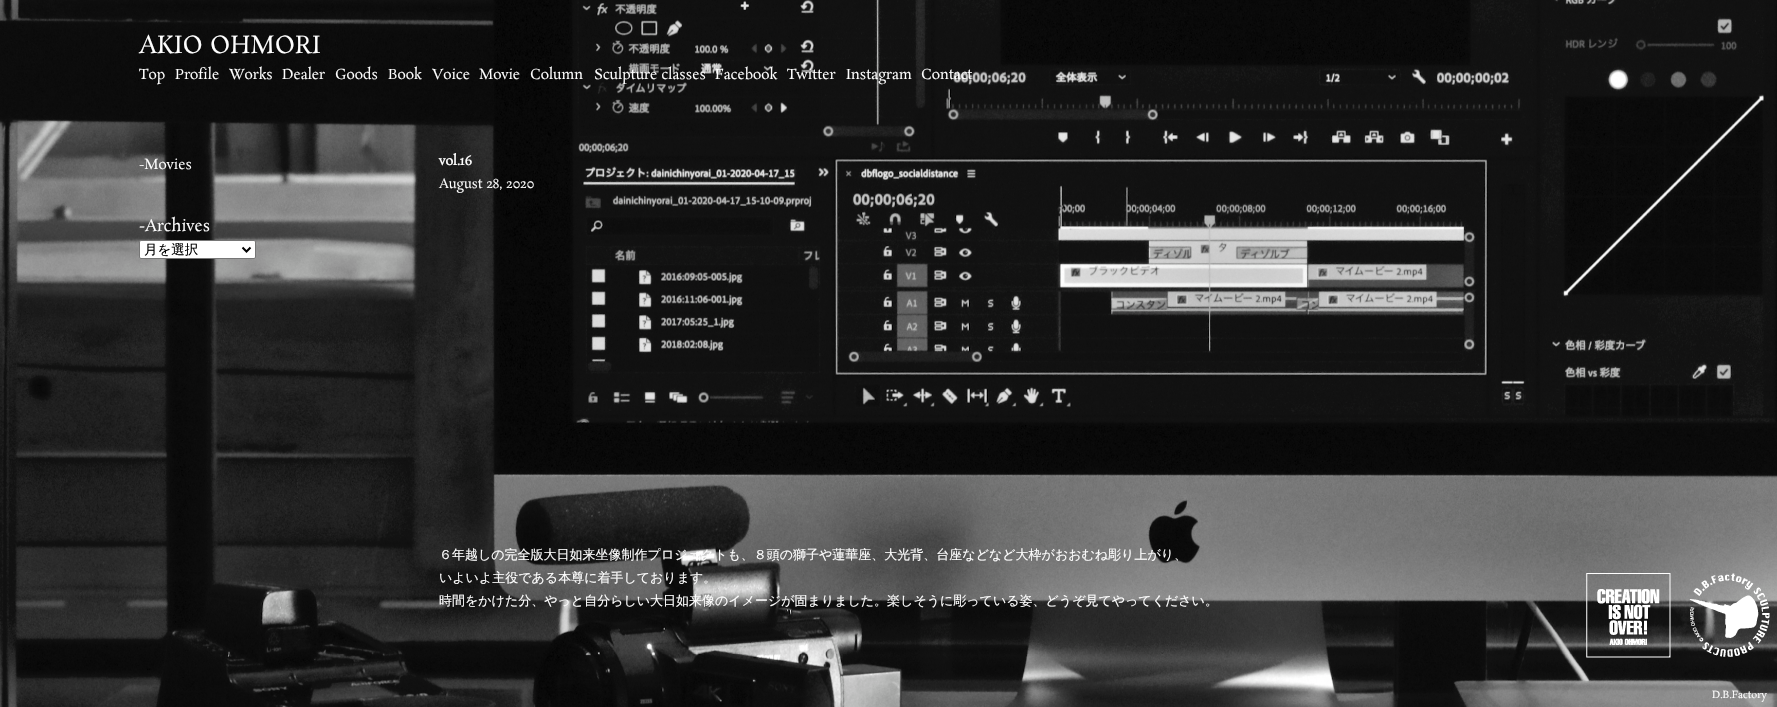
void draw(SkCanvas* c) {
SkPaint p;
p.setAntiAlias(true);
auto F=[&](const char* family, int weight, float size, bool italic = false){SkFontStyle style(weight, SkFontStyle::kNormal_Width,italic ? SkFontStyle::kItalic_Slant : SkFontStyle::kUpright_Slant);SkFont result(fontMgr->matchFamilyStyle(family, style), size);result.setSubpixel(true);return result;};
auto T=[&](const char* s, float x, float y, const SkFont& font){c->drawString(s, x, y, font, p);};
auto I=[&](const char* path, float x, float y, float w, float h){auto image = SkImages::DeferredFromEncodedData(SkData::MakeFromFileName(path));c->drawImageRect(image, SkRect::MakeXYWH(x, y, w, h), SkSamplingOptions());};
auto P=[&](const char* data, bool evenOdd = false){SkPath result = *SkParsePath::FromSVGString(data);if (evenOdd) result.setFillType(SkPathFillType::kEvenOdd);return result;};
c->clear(0xffffffff);
I("1.png",0,0,1777,707);
auto f1 = F("Rosarivo",400,24);
p.setColor(0xffffffff);
T("AKIO OHMORI",139,53,f1);
auto f2 = F("Rosarivo",400,14);
T("Top",139,79,f2);
T("Profile",175,79,f2);
T("Works",229,79,f2);
T("Dealer",282,79,f2);
T("Goods",335,79,f2);
T("Book",388,79,f2);
T("Voice",432,79,f2);
T("Movie",479,79,f2);
T("Column",530,79,f2);
T("Sculpture classes",594,79,f2);
T("Facebook",715,79,f2);
T("Twitter",787,79,f2);
T("Instagram",846,79,f2);
T("Contact",921,79,f2);
T("-Movies",139,169,f2);
auto f3 = F("Rosarivo",400,16);
T("-Archives",139,231,f3);
c->drawRoundRect(SkRect::MakeXYWH(139.5,240.5,116,18),1.5,1.5,p);
p.setStroke(true);
p.setStrokeWidth(1);
p.setColor(0xff767676);
c->drawRoundRect(SkRect::MakeXYWH(139.5,240.5,116,18),1.5,1.5,p);
p.setStrokeWidth(2);
p.setColor(0xff000000);
c->drawPath(P("M242.5 247.5l4 4l4-4"),p);
auto f4 = F("WenQuanYi Zen Hei",500,13.5);
p.setStroke(false);
T("月を選択",144,254,f4);
auto f5 = F("Rosarivo",700,13);
p.setColor(0xffffffff);
T("vol.16",439,165,f5);
auto f6 = F("Rosarivo",400,13);
T("August 28, 2020",439,188,f6);
auto f7 = F("WenQuanYi Zen Hei",500,13);
T("６年越しの完全版大日如来坐像制作プロジェクトも、８頭の獅子や蓮華座、大光背、台座などなど大枠がおおむね彫り上がり、",439,559,f7);
T("いよいよ主役である本尊に着手しております。",439,582,f7);
T("時間をかけた分、やっと自分らしい大日如来像のイメージが固まりました。楽しそうに彫っている姿、どうぞ見てやってください。",439,605,f7);
auto f8 = F("Rosarivo",400,10);
T("D.B.Factory",1712,698,f8);
I("2.png",1586,573,85,85);
I("3.png",1689,573,81,84);
}
